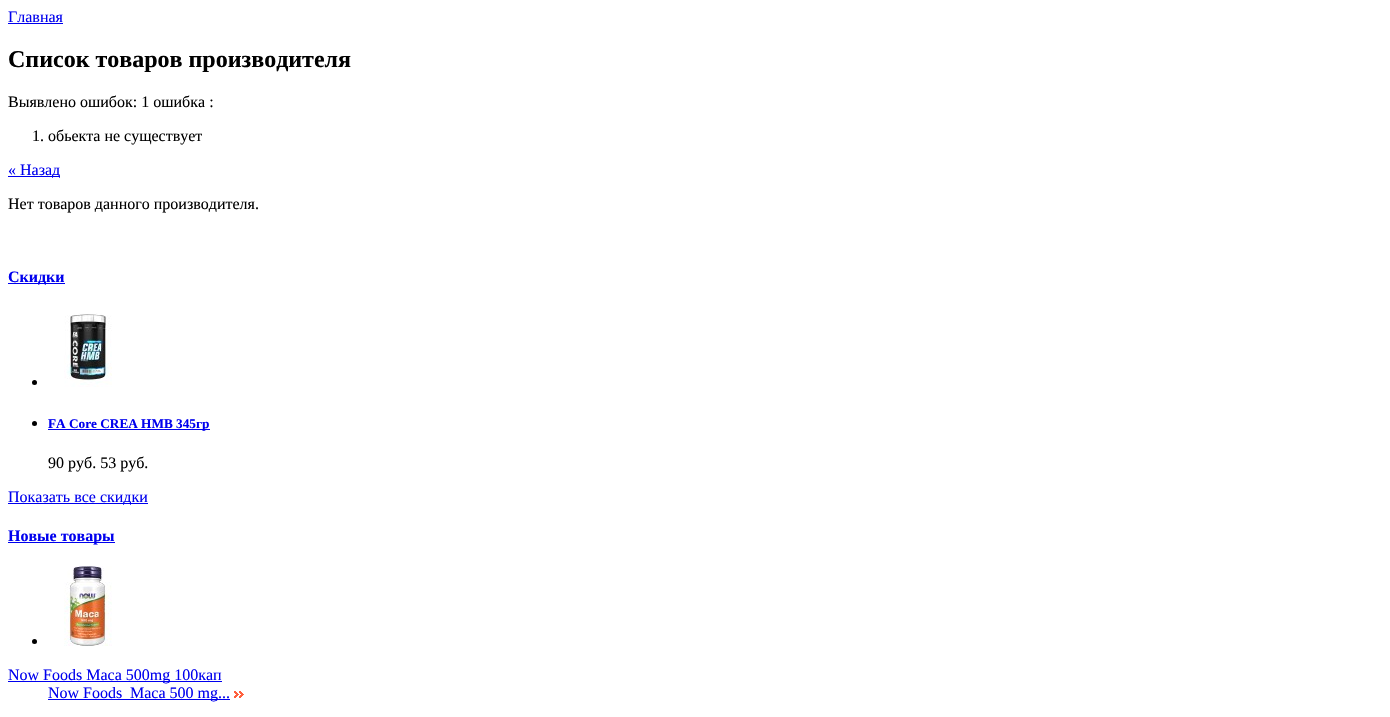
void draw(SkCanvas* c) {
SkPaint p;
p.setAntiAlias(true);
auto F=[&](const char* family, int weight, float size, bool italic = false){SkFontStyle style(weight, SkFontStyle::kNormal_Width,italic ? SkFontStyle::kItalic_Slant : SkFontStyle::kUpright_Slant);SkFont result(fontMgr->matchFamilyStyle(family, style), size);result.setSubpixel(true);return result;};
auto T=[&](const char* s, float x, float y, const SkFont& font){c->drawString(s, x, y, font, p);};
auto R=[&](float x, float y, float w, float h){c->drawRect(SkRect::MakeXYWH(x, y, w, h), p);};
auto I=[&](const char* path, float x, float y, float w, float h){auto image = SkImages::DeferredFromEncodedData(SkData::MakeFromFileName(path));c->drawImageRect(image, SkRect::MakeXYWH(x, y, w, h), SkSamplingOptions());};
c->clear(0xffffffff);
auto f1 = F("Liberation Serif",400,16);
p.setColor(0xff0000ee);
T("Главная",8,22,f1);
R(8,23,55,1);
auto f2 = F("Liberation Serif",700,24);
p.setColor(0xff000000);
T("Список товаров производителя",8,67,f2);
T("Выявлено ошибок: 1 ошибка :",8,107,f1);
T("1. обьекта не существует",32,141,f1);
p.setColor(0xff0000ee);
R(8,176,52,1);
T("« Назад",8,175,f1);
p.setColor(0xff000000);
T("Нет товаров данного производителя.",8,209,f1);
p.setColor(0xff0000ee);
R(8,283,57,1);
auto f3 = F("Liberation Serif",700,16);
T("Скидки",8,282,f3);
p.setColor(0xff000000);
c->drawCircle(34.5,382.5,2.5,p);
I("1.png",64,313,48,74);
c->drawCircle(34.5,423.5,2.5,p);
p.setColor(0xff0000ee);
R(48,429,162,1);
auto f4 = F("Liberation Serif",700,13.25);
T("FA Core CREA HMB 345гр",48,428,f4);
p.setColor(0xff000000);
T("90 руб. 53 руб.",48,468,f1);
p.setColor(0xff0000ee);
R(8,503,140,1);
T("Показать все скидки",8,502,f1);
R(8,542,107,1);
T("Новые товары",8,541,f3);
p.setColor(0xff000000);
c->drawCircle(34.5,641.5,2.5,p);
I("2.png",64,566,48,80);
p.setColor(0xff0000ee);
R(8,681,214,1);
T("Now Foods Maca 500mg 100кап",8,680,f1);
T("Now Foods",48,698,f1);
R(48,699,182,1);
T("Maca 500 mg...",130,698,f1);
I("3.png",234,691,10,7);
}
